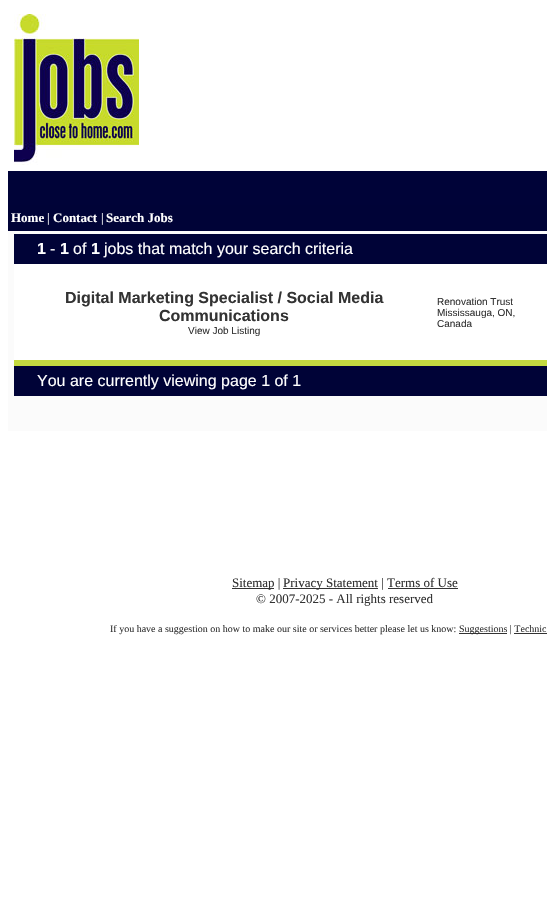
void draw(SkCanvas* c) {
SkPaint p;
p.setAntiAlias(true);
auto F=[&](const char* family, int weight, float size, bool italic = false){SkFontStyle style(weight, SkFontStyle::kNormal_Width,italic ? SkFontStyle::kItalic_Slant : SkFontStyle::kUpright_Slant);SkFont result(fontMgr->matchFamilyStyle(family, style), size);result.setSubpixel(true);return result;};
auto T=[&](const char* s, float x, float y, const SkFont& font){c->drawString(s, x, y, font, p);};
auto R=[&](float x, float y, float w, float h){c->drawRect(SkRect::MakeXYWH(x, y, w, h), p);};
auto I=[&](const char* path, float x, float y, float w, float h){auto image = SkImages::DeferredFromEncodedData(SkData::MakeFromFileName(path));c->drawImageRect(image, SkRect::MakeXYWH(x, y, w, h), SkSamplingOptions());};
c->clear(0xffffffff);
I("1.png",14,14,125,151);
p.setColor(0xff000338);
R(8,171,539,34);
p.setColor(0xff000337);
R(8,205,539,26);
auto f1 = F("Liberation Serif",700,13);
p.setColor(0xffffffff);
T("Home",11,222,f1);
auto f2 = F("Liberation Serif",400,13);
T("|",47,222,f2);
T("Contact",53,222,f1);
T("|",101,222,f2);
T("Search Jobs",106,222,f1);
p.setColor(0xfffbfbfb);
R(8,231,539,200);
p.setColor(0xff000337);
R(14,234,533,30);
auto f3 = F("Liberation Sans",700,16);
p.setColor(0xffffffff);
T("1",37,254,f3);
auto f4 = F("Liberation Sans",400,16);
T("-",50,254,f4);
T("1",60,254,f3);
T("of",73,254,f4);
T("1",91,254,f3);
T("jobs that match your search criteria",104,254,f4);
R(14,264,533,96);
p.setColor(0xff333333);
T("Digital Marketing Specialist / Social Media",65,303,f3);
T("Communications",159,321,f3);
auto f5 = F("Liberation Sans",400,10);
T("View Job Listing",188,334,f5);
T("Renovation Trust",437,305,f5);
T("Mississauga, ON,",437,316,f5);
T("Canada",437,327,f5);
p.setColor(0xffc3d940);
R(14,360,533,6);
p.setColor(0xff000337);
R(14,366,533,30);
p.setColor(0xffffffff);
T("You are currently viewing page 1 of 1",37,386,f4);
p.setColor(0xff333333);
R(232,588,42,1);
T("Sitemap |",232,587,f2);
R(283,588,95,1);
T("Privacy Statement | Terms of Use",283,587,f2);
R(388,588,70,1);
T("© 2007-2025 - All rights reserved",256,603,f2);
auto f6 = F("Liberation Serif",400,10);
T("If you have a suggestion on how to make our site or services better please let us know:",110,632,f6);
R(459,633,48,1);
T("Suggestions | Technic",459,632,f6);
R(514,633,33,1);
}
